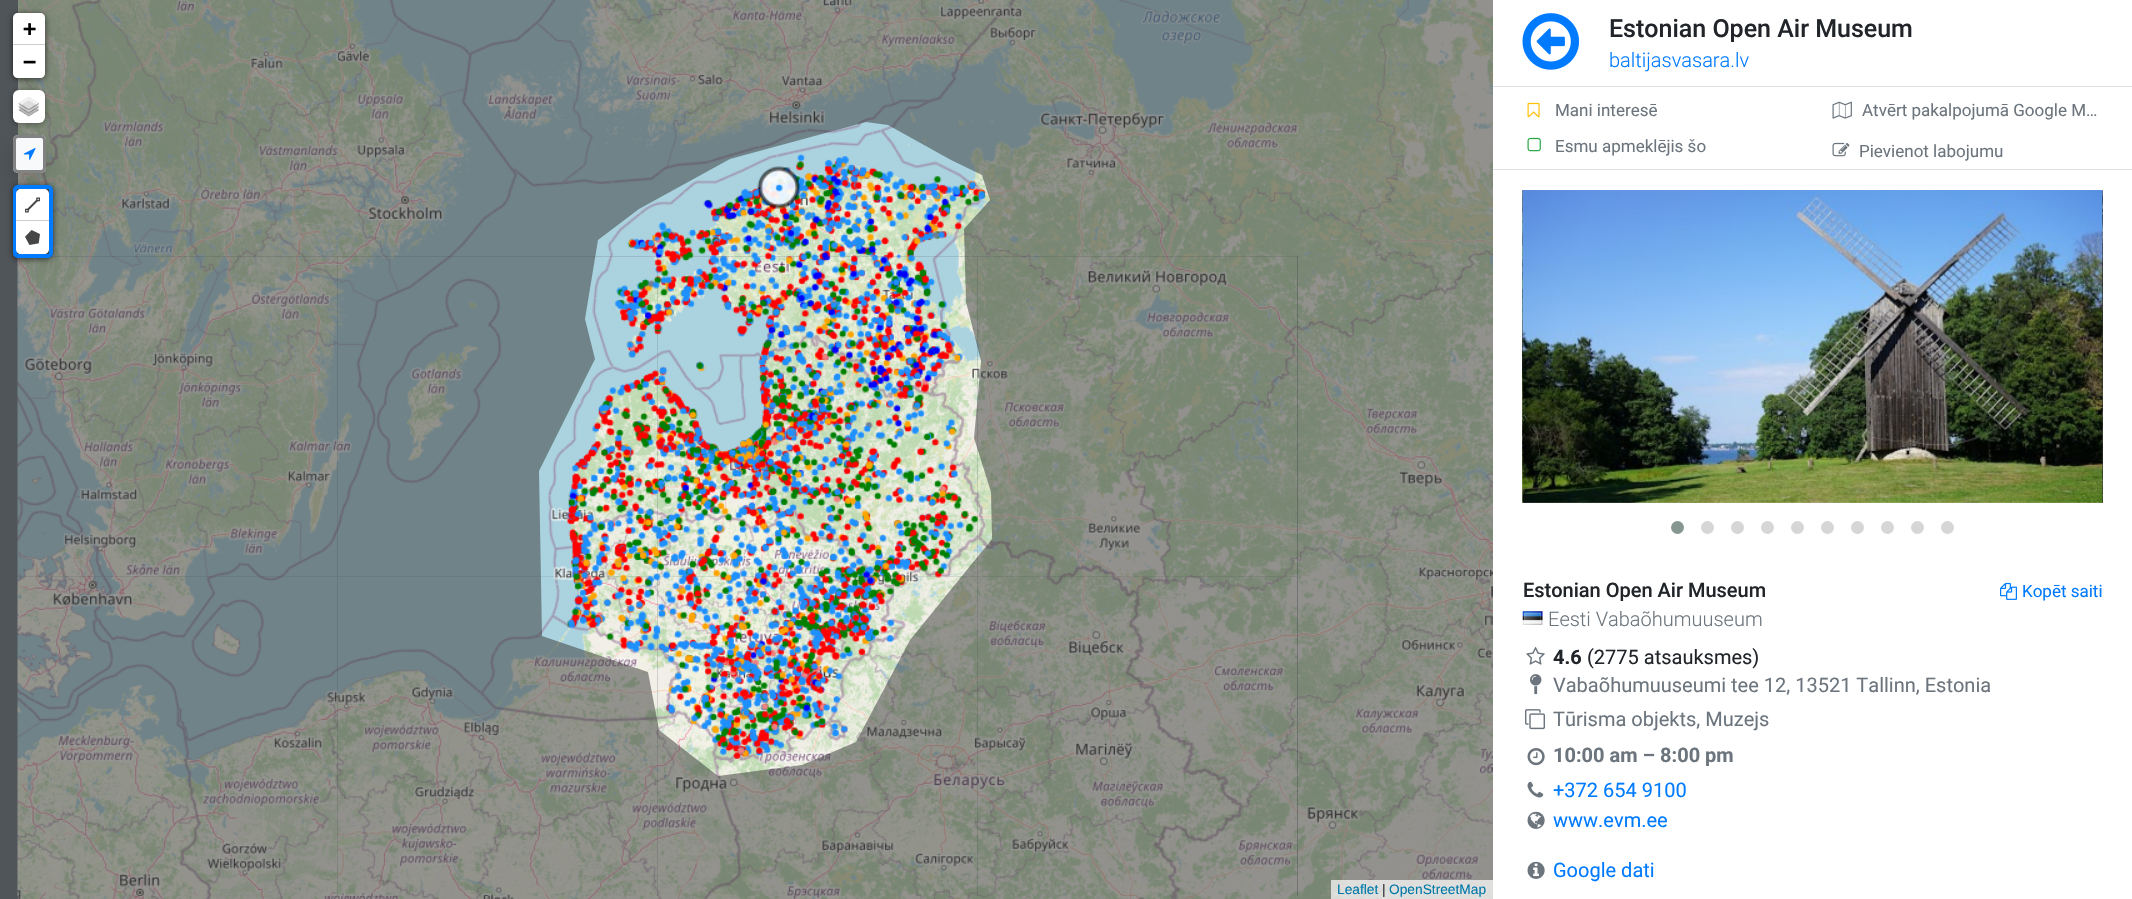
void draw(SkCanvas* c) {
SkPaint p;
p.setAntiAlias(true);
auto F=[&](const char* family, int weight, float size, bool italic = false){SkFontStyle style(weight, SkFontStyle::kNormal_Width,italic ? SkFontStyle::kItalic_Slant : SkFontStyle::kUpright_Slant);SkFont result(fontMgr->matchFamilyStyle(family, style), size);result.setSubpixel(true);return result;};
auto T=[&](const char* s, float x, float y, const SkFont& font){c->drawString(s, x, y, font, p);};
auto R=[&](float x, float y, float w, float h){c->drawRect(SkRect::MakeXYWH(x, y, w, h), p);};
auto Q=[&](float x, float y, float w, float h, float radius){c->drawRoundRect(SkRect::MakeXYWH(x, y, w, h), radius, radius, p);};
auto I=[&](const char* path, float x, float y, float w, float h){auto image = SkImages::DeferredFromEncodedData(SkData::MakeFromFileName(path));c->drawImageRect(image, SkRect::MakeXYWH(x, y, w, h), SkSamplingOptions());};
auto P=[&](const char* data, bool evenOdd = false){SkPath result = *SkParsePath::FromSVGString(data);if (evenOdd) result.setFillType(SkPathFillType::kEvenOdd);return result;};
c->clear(0xffffffff);
p.setColor(0xff6c757d);
R(0,0,1298,899);
I("3.png",338,0,320,256);
I("4.png",658,0,320,256);
I("5.png",978,0,320,256);
I("8.png",337,256,321,321);
I("9.png",657,256,321,321);
I("13.png",337,576,321,320);
I("14.png",657,576,321,320);
I("10.png",977,256,321,321);
I("15.png",977,576,321,320);
I("1.png",567,153,419,606);
I("2.png",18,0,320,256);
I("6.png",1298,0,195,256);
I("7.png",17,256,321,321);
I("11.png",1298,256,195,320);
I("12.png",17,576,321,321);
I("16.png",1298,576,195,320);
I("17.png",18,896,320,3);
I("18.png",338,896,320,3);
I("19.png",658,896,320,3);
I("20.png",978,896,320,3);
I("21.png",1298,896,195,3);
c->save();
c->clipRect(SkRect::MakeXYWH(0,0,1493,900));
p.setColor(0x80333333);
c->drawPath(P("M1646 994h-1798v-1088h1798zm-1007-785l-41 31l-13 79l10 40l-56 112l3 165l106 36l11 58l59 46l84-11l54-23l54-102l82-101l-1-47l-17-54l7-77l-15-59l-2-73l26-29l-8-25l-31-15l-63-35l-22-3l-136 37z",true),p);
c->restore();
p.setColor(0xa6000000);
p.setMaskFilter(SkMaskFilter::MakeBlur(kNormal_SkBlurStyle, 3));
c->drawRoundRect(SkRect::MakeXYWH(13,14,32,65),5,5,p);
p.setMaskFilter(nullptr);
p.setColor(0xffffffff);
c->drawPath(P("M18 13h22c3 0 5 2 5 5v27h-32v-27c0-3 2-5 5-5z"),p);
p.setColor(0xffcccccc);
R(13,44,32,1);
auto f1 = F("DejaVu Sans Mono",700,22);
p.setColor(0xff000000);
T("+",23,36,f1);
p.setColor(0xffffffff);
c->drawPath(P("M13 45h32v28c0 3-2 5-5 5h-22c-3 0-5-2-5-5z"),p);
p.setColor(0xff000000);
T("−",23,69,f1);
p.setColor(0x66000000);
p.setMaskFilter(SkMaskFilter::MakeBlur(kNormal_SkBlurStyle, 3));
c->drawRoundRect(SkRect::MakeXYWH(13,91,32,33),6,6,p);
p.setMaskFilter(nullptr);
p.setColor(0xffffffff);
Q(13,90,32,33,6);
I("22.png",18,97,21,20);
p.setColor(0x26000000);
p.setMaskFilter(SkMaskFilter::MakeBlur(kNormal_SkBlurStyle, 10));
c->drawRoundRect(SkRect::MakeXYWH(13,145,33,38),5,5,p);
p.setMaskFilter(nullptr);
p.setColor(0xfff8f9fa);
Q(13,135,33,38,5);
p.setStroke(true);
p.setStrokeWidth(3);
p.setColor(0xcc646464);
c->drawRoundRect(SkRect::MakeXYWH(14.5,136.5,30,35),3.5,3.5,p);
I("23.png",23,148,13,12);
p.setStroke(false);
p.setColor(0xa6000000);
p.setMaskFilter(SkMaskFilter::MakeBlur(kNormal_SkBlurStyle, 3));
c->drawRoundRect(SkRect::MakeXYWH(13,186,40,73),5,5,p);
p.setMaskFilter(nullptr);
p.setStroke(true);
p.setStrokeWidth(4);
p.setColor(0xff007bff);
c->drawRoundRect(SkRect::MakeXYWH(15,187,36,69),3,3,p);
p.setStroke(false);
p.setColor(0xffffffff);
c->drawPath(P("M21 189h23c3 0 5 2 5 5v26h-33v-26c0-3 2-5 5-5z"),p);
I("24.png",25,197,15,16);
p.setColor(0xffcccccc);
R(16,220,33,1);
p.setColor(0xffffffff);
c->drawPath(P("M16 221h33v28c0 3-2 5-5 5h-23c-3 0-5-2-5-5z"),p);
I("25.png",25,230,15,15);
p.setColor(0xb3ffffff);
R(1331,880,162,19);
auto f2 = F("Liberation Sans",400,13.75);
p.setColor(0xff0078a8);
T("Leaflet",1337,894,f2);
p.setColor(0xff333333);
T("|",1382,894,f2);
p.setColor(0xff0078a8);
T("OpenStreetMap",1389,894,f2);
p.setColor(0xffdee2e6);
R(1493,86,639,1);
I("26.png",1522,13,58,57);
auto f3 = F("Roboto",500,25);
p.setColor(0xff212529);
T("Estonian Open Air Museum",1609,37,f3);
auto f4 = F("Roboto",300,20);
p.setColor(0xff007bff);
T("baltijasvasara.lv",1609,67,f4);
p.setColor(0xffdee2e6);
R(1493,169,639,1);
I("27.png",1527,102,13,16);
auto f5 = F("Roboto",400,17);
p.setColor(0xff6c757d);
T("Mani interesē",1555,116,f5);
I("28.png",1527,137,14,15);
T("Esmu apmeklējis šo",1555,152,f5);
I("29.png",1832,101,20,18);
T("Atvērt pakalpojumā Google M…",1862,116,f5);
I("30.png",1832,142,18,15);
T("Pievienot labojumu",1859,157,f5);
I("31.png",1522,190,1,313);
I("32.png",1522,190,1,313);
I("33.png",1522,190,581,313);
I("34.png",1522,190,581,313);
I("35.png",2102,190,1,313);
I("36.png",2102,190,1,313);
p.setColor(0xff869791);
c->drawCircle(1677.5,527.5,6.5,p);
p.setColor(0xffd6d6d6);
c->drawCircle(1707.5,527.5,6.5,p);
c->drawCircle(1737.5,527.5,6.5,p);
c->drawCircle(1767.5,527.5,6.5,p);
c->drawCircle(1797.5,527.5,6.5,p);
c->drawCircle(1827.5,527.5,6.5,p);
c->drawCircle(1857.5,527.5,6.5,p);
c->drawCircle(1887.5,527.5,6.5,p);
c->drawCircle(1917.5,527.5,6.5,p);
c->drawCircle(1947.5,527.5,6.5,p);
auto f6 = F("Roboto",500,20);
p.setColor(0xff212529);
T("Estonian Open Air Museum",1523,597,f6);
I("37.png",2000,582,17,18);
p.setColor(0xff007bff);
T("Kopēt saiti",2022,597,f5);
I("38.png",1522,611,21,14);
p.setColor(0xff6c757d);
T("Eesti Vabaõhumuuseum",1548,626,f4);
I("39.png",1526,647,19,18);
auto f7 = F("Roboto",700,20);
p.setColor(0xff212529);
T("4.6",1553,664,f7);
auto f8 = F("Roboto",400,20);
T("(2775 atsauksmes)",1587,664,f8);
I("40.png",1530,674,12,21);
p.setColor(0xff6c757d);
T("Vabaõhumuuseumi tee 12, 13521 Tallinn, Estonia",1553,692,f8);
I("41.png",1525,709,20,21);
T("Tūrisma objekts, Muzejs",1553,726,f8);
I("42.png",1527,748,18,18);
T("10:00 am – 8:00 pm",1553,762,f7);
I("43.png",1527,781,17,17);
p.setColor(0xff007bff);
T("+372 654 9100",1553,797,f8);
I("44.png",1527,811,18,18);
T("www.evm.ee",1553,827,f8);
I("45.png",1527,861,18,18);
T("Google dati",1553,877,f8);
}
